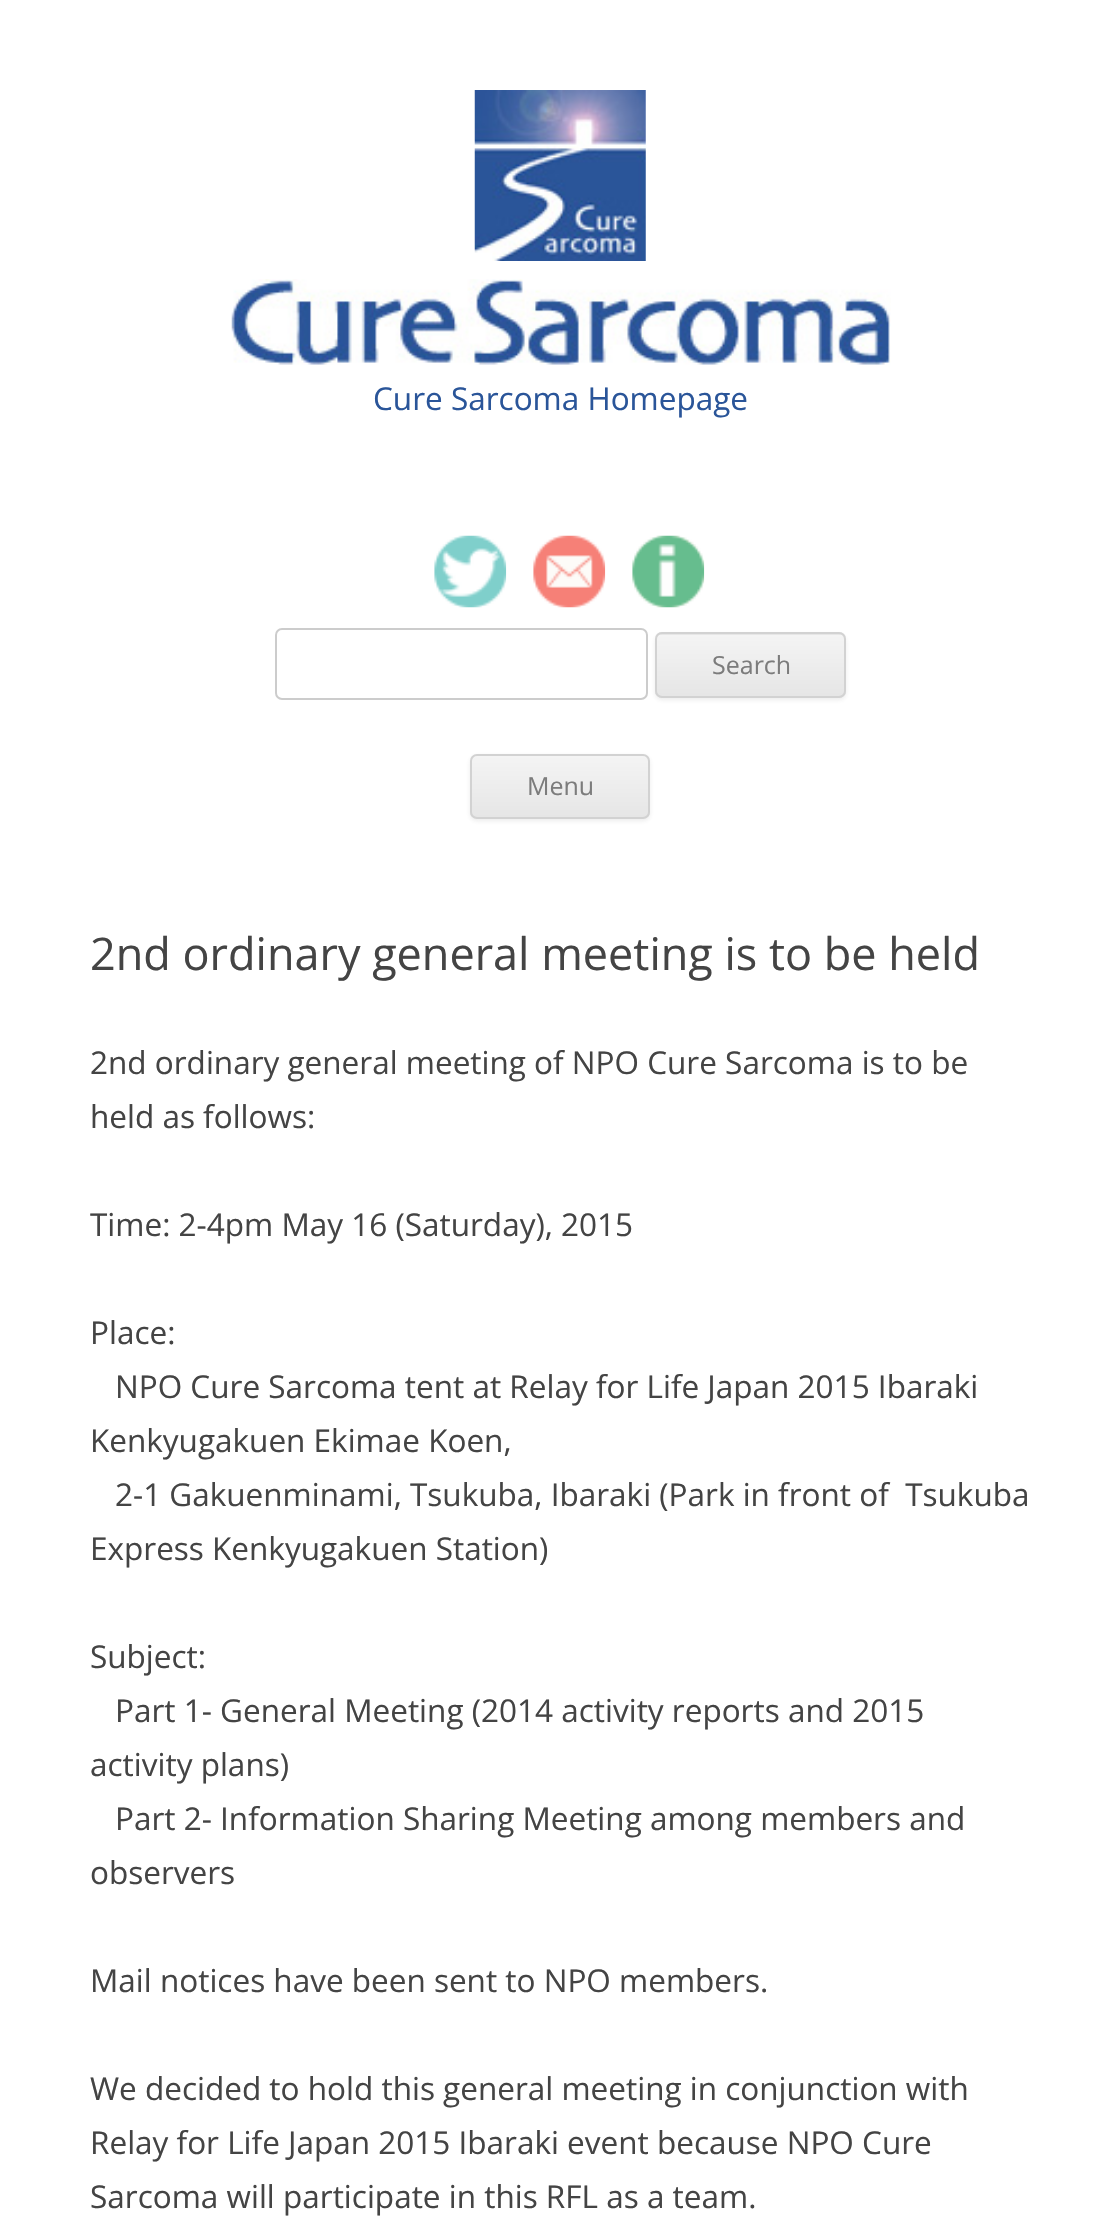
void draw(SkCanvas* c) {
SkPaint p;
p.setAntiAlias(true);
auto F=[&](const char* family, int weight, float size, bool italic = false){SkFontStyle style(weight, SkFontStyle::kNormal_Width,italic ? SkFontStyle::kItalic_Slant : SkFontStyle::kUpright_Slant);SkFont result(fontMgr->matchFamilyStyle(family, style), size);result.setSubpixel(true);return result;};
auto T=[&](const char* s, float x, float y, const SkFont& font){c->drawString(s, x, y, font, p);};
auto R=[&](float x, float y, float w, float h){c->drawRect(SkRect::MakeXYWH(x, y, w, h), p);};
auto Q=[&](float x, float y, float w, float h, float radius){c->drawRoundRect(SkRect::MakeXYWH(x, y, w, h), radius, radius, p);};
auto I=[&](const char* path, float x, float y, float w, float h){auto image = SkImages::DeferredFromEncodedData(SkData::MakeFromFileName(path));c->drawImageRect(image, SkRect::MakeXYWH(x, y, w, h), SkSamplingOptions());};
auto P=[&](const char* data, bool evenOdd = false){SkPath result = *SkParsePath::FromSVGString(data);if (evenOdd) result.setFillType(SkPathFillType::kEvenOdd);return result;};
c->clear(0xffffffff);
I("1.png",474,90,172,171);
I("2.png",231,279,660,86);
auto f1 = F("Open Sans",400,31.5);
p.setColor(0xff2a5599);
T("Cure Sarcoma Homepage",373,410,f1);
I("3.png",434,535,73,73);
I("4.png",533,535,73,73);
I("5.png",632,535,73,73);
p.setStroke(true);
p.setStrokeWidth(2);
p.setColor(0xffcccccc);
c->drawRoundRect(SkRect::MakeXYWH(276,629,371,70),6,6,p);
p.setStroke(false);
p.setColor(0x1a404040);
p.setMaskFilter(SkMaskFilter::MakeBlur(kNormal_SkBlurStyle, 2));
c->drawRoundRect(SkRect::MakeXYWH(655,635,191,65),7,7,p);
p.setMaskFilter(nullptr);
p.setColor(0xffe6e6e6);
Q(655,632,191,66,7);
c->save();
c->clipPath(P("M662 632h177c4 0 7 3 7 7v52c0 4-3 7-7 7h-177c-4 0-7-3-7-7v-52c0-4 3-7 7-7z"),true);
{
const SkColor colors[] = {0xfff4f4f4,0xffe6e6e6};
const float stops[] = {0,1};
const SkPoint ends[] = {{750,635}, {750,695}};
p.setShader(SkGradientShader::MakeLinear(ends, colors, stops, 2, SkTileMode::kClamp));
p.setAlpha(255);
}
R(655,635,191,60);
c->restore();
p.setStroke(true);
p.setShader(nullptr);
p.setColor(0xffd2d2d2);
c->drawRoundRect(SkRect::MakeXYWH(656,633,189,64),6,6,p);
auto f2 = F("Open Sans",400,25);
p.setStroke(false);
p.setColor(0xff7c7c7c);
T("Search",712,674,f2);
p.setColor(0x1a404040);
p.setMaskFilter(SkMaskFilter::MakeBlur(kNormal_SkBlurStyle, 2));
c->drawRoundRect(SkRect::MakeXYWH(470,756,180,65),7,7,p);
p.setMaskFilter(nullptr);
c->save();
c->clipPath(P("M477 754h166c4 0 7 3 7 7v51c0 4-3 7-7 7h-166c-4 0-7-3-7-7v-51c0-4 3-7 7-7z"),true);
{
const SkColor colors[] = {0xfff4f4f4,0xffe6e6e6};
const float stops[] = {0,1};
const SkPoint ends[] = {{560,756}, {560,817}};
p.setShader(SkGradientShader::MakeLinear(ends, colors, stops, 2, SkTileMode::kClamp));
p.setAlpha(255);
}
R(470,756,180,61);
c->restore();
p.setStroke(true);
p.setShader(nullptr);
p.setColor(0xffd2d2d2);
c->drawRoundRect(SkRect::MakeXYWH(471,755,178,63),6,6,p);
p.setStroke(false);
p.setColor(0xff7c7c7c);
T("Menu",527,795,f2);
auto f3 = F("Open Sans",400,45);
p.setColor(0xff444444);
T("2nd ordinary general meeting is to be held",90,970,f3);
T("2nd ordinary general meeting of NPO Cure Sarcoma is to be",90,1074,f1);
T("held as follows:",90,1128,f1);
T("Time: 2-4pm May 16 (Saturday), 2015",90,1236,f1);
T("Place:",90,1344,f1);
T("NPO Cure Sarcoma tent at Relay for Life Japan 2015 Ibaraki",115,1398,f1);
T("Kenkyugakuen Ekimae Koen,",90,1452,f1);
T("2-1 Gakuenminami, Tsukuba, Ibaraki (Park in front of  Tsukuba",115,1506,f1);
T("Express Kenkyugakuen Station)",90,1560,f1);
T("Subject:",90,1668,f1);
T("Part 1- General Meeting (2014 activity reports and 2015",115,1722,f1);
T("activity plans)",90,1776,f1);
T("Part 2- Information Sharing Meeting among members and",115,1830,f1);
T("observers",90,1884,f1);
T("Mail notices have been sent to NPO members.",90,1992,f1);
T("We decided to hold this general meeting in conjunction with",90,2100,f1);
T("Relay for Life Japan 2015 Ibaraki event because NPO Cure",90,2154,f1);
T("Sarcoma will participate in this RFL as a team.",90,2208,f1);
}
